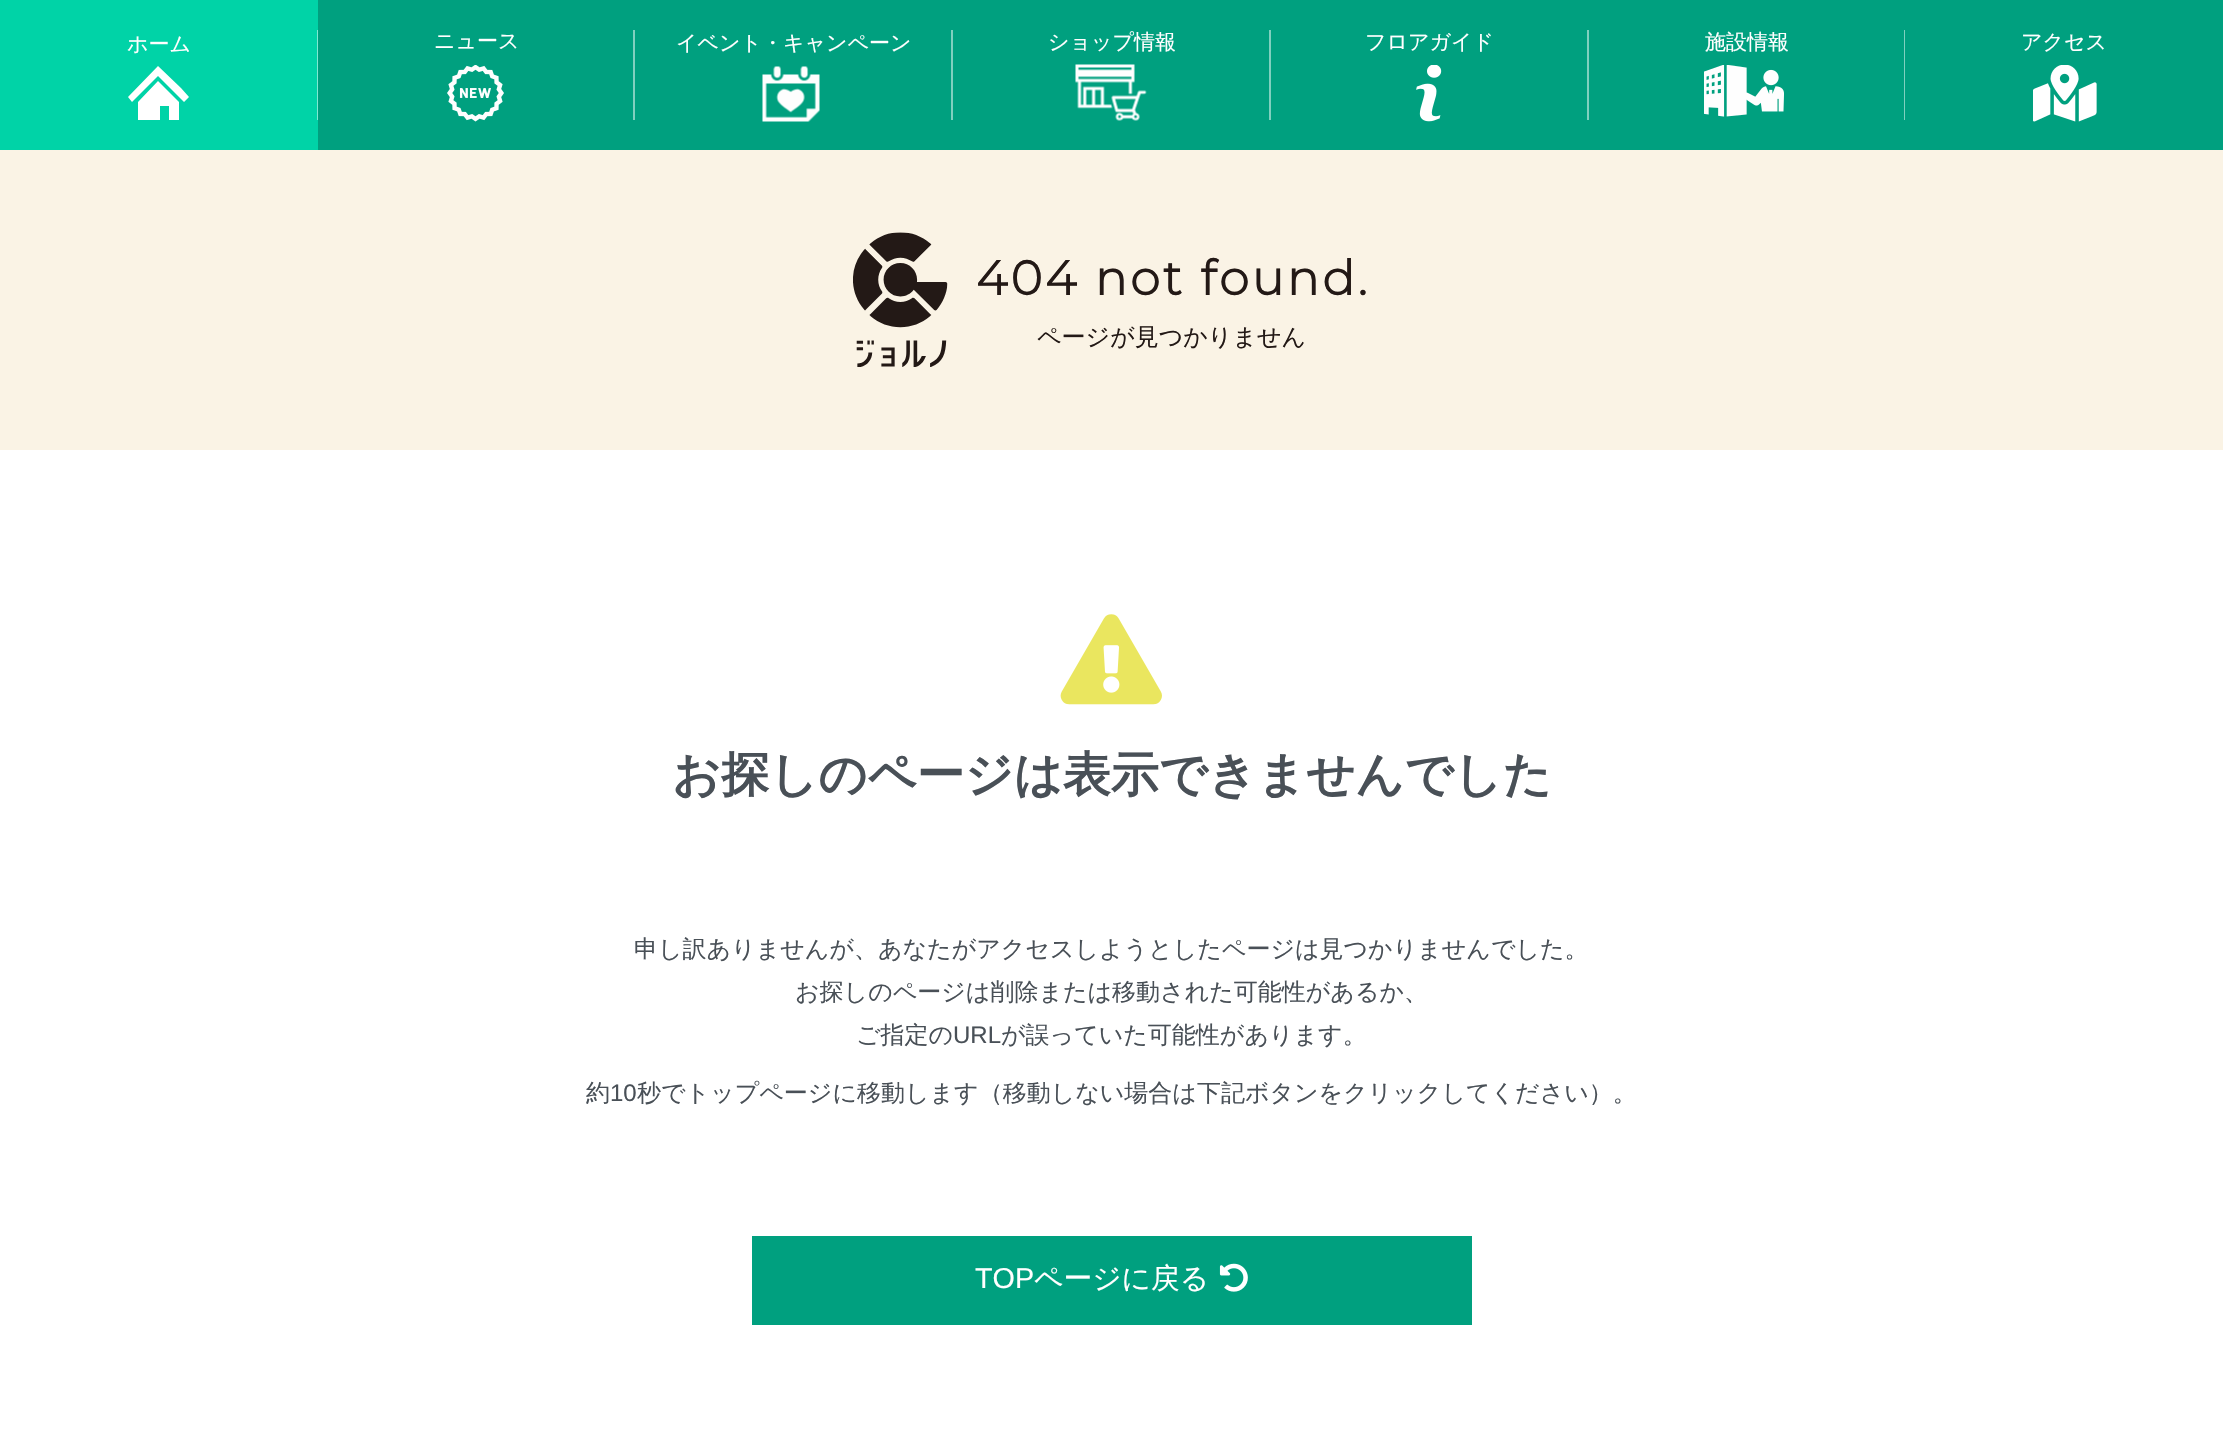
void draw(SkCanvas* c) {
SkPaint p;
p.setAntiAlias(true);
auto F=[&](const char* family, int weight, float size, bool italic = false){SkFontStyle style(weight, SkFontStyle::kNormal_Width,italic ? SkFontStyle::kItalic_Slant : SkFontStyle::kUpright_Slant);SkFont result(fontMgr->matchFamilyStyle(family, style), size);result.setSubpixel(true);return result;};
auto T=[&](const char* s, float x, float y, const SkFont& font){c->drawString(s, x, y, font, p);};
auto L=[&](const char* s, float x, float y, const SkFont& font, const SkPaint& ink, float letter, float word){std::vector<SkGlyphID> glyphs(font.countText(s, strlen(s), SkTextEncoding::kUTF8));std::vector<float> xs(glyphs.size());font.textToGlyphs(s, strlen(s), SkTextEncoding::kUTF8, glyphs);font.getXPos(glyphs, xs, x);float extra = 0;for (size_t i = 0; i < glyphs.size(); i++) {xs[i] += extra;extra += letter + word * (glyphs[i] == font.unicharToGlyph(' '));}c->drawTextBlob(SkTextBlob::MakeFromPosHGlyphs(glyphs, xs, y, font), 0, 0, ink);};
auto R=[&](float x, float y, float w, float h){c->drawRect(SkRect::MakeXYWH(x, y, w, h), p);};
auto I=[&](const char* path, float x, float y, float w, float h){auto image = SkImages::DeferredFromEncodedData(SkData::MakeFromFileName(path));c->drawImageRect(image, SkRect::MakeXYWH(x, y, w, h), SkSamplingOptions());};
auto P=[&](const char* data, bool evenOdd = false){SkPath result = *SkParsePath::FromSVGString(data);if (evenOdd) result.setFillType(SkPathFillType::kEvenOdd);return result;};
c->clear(0xffffffff);
p.setColor(0xff00a07f);
R(318,0,1905,150);
p.setColor(0xff00d3a7);
R(0,0,318,150);
p.setColor(0xff80e9d3);
R(317,30,1,90);
auto f1 = F("WenQuanYi Zen Hei",500,21);
p.setColor(0xffffffff);
T("ホーム",127,51,f1);
c->drawPath(P("M181 88l-23-22l-30 31l4 5l26-26l26 26l5-5z"),p);
c->drawPath(P("M138 102v18h22v-14h9v14h10v-18l-21-21z"),p);
T("ニュース",434,48,f1);
I("1.png",447,65,57,57);
p.setColor(0xff80d0bf);
R(633,30,2,90);
p.setColor(0xffffffff);
T("イベント・キャンペーン",676,50,f1);
I("2.png",762,66,58,56);
p.setColor(0xff80d0bf);
R(951,30,2,90);
p.setColor(0xffffffff);
T("ショップ情報",1048,49,f1);
I("3.png",1075,64,72,57);
p.setColor(0xff80d0bf);
R(1269,30,2,90);
p.setColor(0xffffffff);
T("フロアガイド",1365,49,f1);
I("4.png",1416,65,26,57);
p.setColor(0xff80d0bf);
R(1587,30,2,90);
p.setColor(0xffffffff);
T("施設情報",1705,49,f1);
I("5.png",1704,65,80,52);
p.setColor(0xff80d0bf);
R(1904,30,1,90);
p.setColor(0xffffffff);
T("アクセス",2021,49,f1);
I("6.png",2033,65,64,57);
p.setColor(0xfffaf3e5);
R(0,150,2223,300);
I("7.png",853,232,95,135);
auto f2 = F("Montserrat",700,48);
p.setColor(0xff231916);
L("404 not found.",976,295,f2,p,3,0);
auto f3 = F("WenQuanYi Zen Hei",500,24);
T("ページが見つかりません",1037,345,f3);
I("8.png",1060,614,102,91);
auto f4 = F("WenQuanYi Zen Hei",700,48);
p.setColor(0xff495057);
T("お探しのページは表示できませんでした",672,791,f4);
T("申し訳ありませんが、あなたがアクセスしようとしたページは見つかりませんでした。",634,957,f3);
T("お探しのページは削除または移動された可能性があるか、",795,1000,f3);
T("ご指定の",856,1043,f3);
auto f5 = F("Liberation Sans",400,24);
T("URL",953,1043,f5);
T("が誤っていた可能性があります。",1001,1043,f3);
T("約",586,1101,f3);
T("10",610,1101,f5);
T("秒でトップページに移動します（移動しない場合は下記ボタンをクリックしてください）。",637,1101,f3);
p.setColor(0xff00a07f);
R(752,1236,720,89);
auto f6 = F("Liberation Sans",400,28.75);
p.setColor(0xffffffff);
T("TOP",975,1288,f6);
auto f7 = F("WenQuanYi Zen Hei",500,28.75);
T("ページに戻る",1034,1288,f7);
I("9.png",1219,1263,29,29);
}
